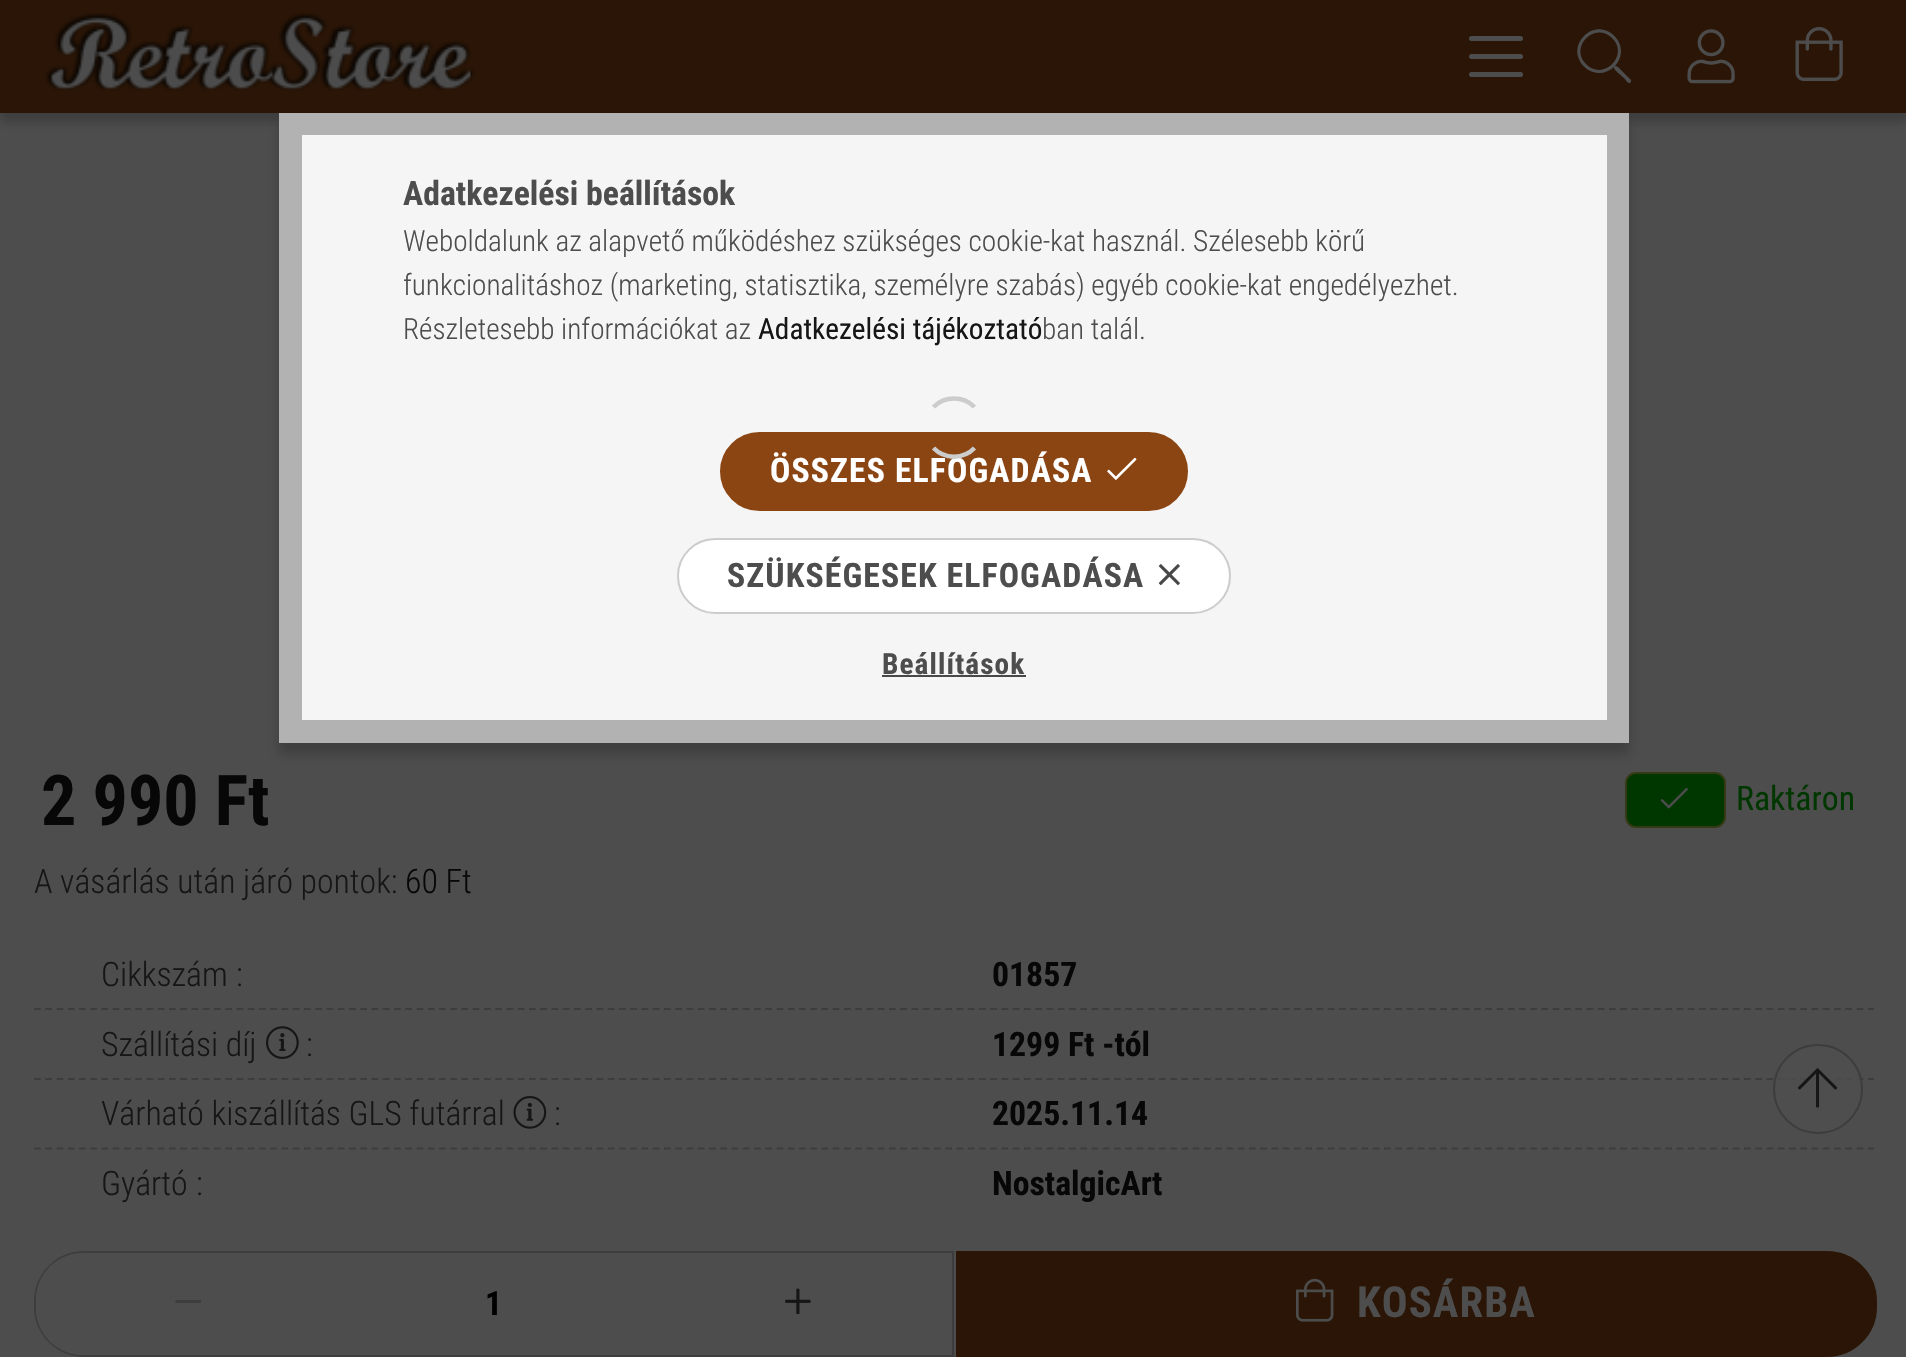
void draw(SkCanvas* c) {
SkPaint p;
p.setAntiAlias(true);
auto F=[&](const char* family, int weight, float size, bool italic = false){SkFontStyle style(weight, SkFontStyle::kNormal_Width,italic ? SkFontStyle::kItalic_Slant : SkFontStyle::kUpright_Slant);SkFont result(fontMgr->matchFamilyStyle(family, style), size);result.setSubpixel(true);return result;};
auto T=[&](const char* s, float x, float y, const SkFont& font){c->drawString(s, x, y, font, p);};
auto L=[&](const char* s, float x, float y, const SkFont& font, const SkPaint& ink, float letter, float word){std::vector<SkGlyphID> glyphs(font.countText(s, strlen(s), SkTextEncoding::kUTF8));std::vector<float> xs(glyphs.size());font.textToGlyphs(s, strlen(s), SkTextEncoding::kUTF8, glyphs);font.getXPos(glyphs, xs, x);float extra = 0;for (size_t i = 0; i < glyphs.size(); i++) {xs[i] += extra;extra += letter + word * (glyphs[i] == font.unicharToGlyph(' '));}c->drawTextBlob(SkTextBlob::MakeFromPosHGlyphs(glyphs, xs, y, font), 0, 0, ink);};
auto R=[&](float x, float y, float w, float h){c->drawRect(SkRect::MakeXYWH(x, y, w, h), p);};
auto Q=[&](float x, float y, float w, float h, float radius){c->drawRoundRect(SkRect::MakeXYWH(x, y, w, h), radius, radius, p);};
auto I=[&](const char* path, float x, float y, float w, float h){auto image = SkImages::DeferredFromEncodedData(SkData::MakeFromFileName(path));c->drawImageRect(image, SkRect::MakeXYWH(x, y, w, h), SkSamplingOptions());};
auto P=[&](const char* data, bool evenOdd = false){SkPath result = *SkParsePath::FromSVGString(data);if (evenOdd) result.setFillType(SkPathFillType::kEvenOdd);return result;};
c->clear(0xff4d4d4d);
p.setColor(0x33000000);
p.setMaskFilter(SkMaskFilter::MakeBlur(kNormal_SkBlurStyle, 4.5));
c->drawRect(SkRect::MakeXYWH(0,9,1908,113),p);
p.setMaskFilter(nullptr);
p.setColor(0xff2a1506);
R(0,0,1906,113);
p.setColor(0x33000000);
p.setMaskFilter(SkMaskFilter::MakeBlur(kNormal_SkBlurStyle, 5.5));
c->drawRect(SkRect::MakeXYWH(279,124,1350,630),p);
p.setMaskFilter(nullptr);
p.setStroke(true);
p.setStrokeWidth(23);
p.setColor(0xffb2b2b2);
c->drawRect(SkRect::MakeXYWH(290.5,124.5,1327,607),p);
p.setStroke(false);
p.setColor(0xfff5f5f5);
R(302,135,1305,585);
auto f1 = F("Roboto Condensed",700,33.75);
p.setColor(0xff4d4d4d);
T("Adatkezelési beállítások",403,205,f1);
auto f2 = F("Roboto Condensed",300,29.25);
T("Weboldalunk az alapvető működéshez szükséges cookie-kat használ. Szélesebb körű",403,251,f2);
T("funkcionalitáshoz (marketing, statisztika, személyre szabás) egyéb cookie-kat engedélyezhet.",403,295,f2);
T("Részletesebb információkat az",403,339,f2);
auto f3 = F("Roboto Condensed",400,29.25);
p.setColor(0xff161616);
T("Adatkezelési tájékoztató",758,339,f3);
p.setColor(0xff4d4d4d);
T("ban talál.",1042,339,f2);
p.setColor(0xff8b4513);
c->drawRoundRect(SkRect::MakeXYWH(721,433,466,77),38.5,38.5,p);
p.setStroke(true);
p.setStrokeWidth(2);
c->drawRoundRect(SkRect::MakeXYWH(721,433,466,77),38.5,38.5,p);
p.setStroke(false);
p.setColor(0xffffffff);
L("ÖSSZES ELFOGADÁSA",770,482,f1,p,1.1,0);
I("1.png",1107,457,30,23);
c->drawRoundRect(SkRect::MakeXYWH(678,539,552,74),37,37,p);
p.setStroke(true);
p.setColor(0xffcccccc);
c->drawRoundRect(SkRect::MakeXYWH(678,539,552,74),37,37,p);
p.setStroke(false);
p.setColor(0xff4d4d4d);
L("SZÜKSÉGESEK ELFOGADÁSA",727,587,f1,p,1.1,0);
I("2.png",1158,564,22,22);
auto f4 = F("Roboto Condensed",700,29.25);
L("Beállítások",882,674,f4,p,1.1,0);
p.setColor(0xff484848);
R(882,675,144,2);
p.setStroke(true);
p.setStrokeWidth(4.5);
p.setColor(0xffcccccc);
c->drawPath(P("M933.5 407c11-11.5 30-11.5 41 0m0 41c-11 11.5-30 11.5-41 0"),p);
I("3.png",44,13,432,78);
p.setStroke(false);
p.setColor(0xff4d4d4d);
Q(1469,36,54,5,2.5);
Q(1469,54,54,5,2.5);
Q(1469,72,54,5,2.5);
c->drawPath(P("M1631 80v1c-1 6-6-2-7-3l-7-6c-2-3-3-2-3-5c-21 19-50-11-30-31c20-20 50 9 31 30c3 0 5 3 7 5zm-45-16c17 18 44-9 26-26c-17-17-43 9-26 26z"),p);
I("4.png",1687,29,48,55);
I("5.png",1795,27,48,54);
auto f5 = F("Roboto Condensed",700,70);
p.setColor(0xff070707);
T("2 990 Ft",41,825,f5);
p.setColor(0xff003600);
c->drawRoundRect(SkRect::MakeXYWH(1626,773,99,54),10,10,p);
p.setStroke(true);
p.setStrokeWidth(2);
p.setColor(0xff333a14);
c->drawRoundRect(SkRect::MakeXYWH(1626,773,99,54),10,10,p);
I("6.png",1660,787,28,22);
auto f6 = F("Roboto Condensed",400,33.75);
p.setStroke(false);
p.setColor(0xff003600);
T("Raktáron",1736,810,f6);
auto f7 = F("Roboto Condensed",300,33.75);
p.setColor(0xff161616);
T("A vásárlás után járó pontok:",34,893,f7);
p.setColor(0xff070707);
T("60 Ft",405,893,f7);
p.setColor(0xff161616);
T("Cikkszám",101,986,f7);
T(":",236,986,f7);
p.setColor(0xff070707);
T("01857",992,986,f1);
p.setStroke(true);
p.setStrokeWidth(2.2);
p.setColor(0xff3d3d3d);
p.setPathEffect(SkDashPathEffect::Make({{6.75f,4.5f}}, 0));
c->drawPath(P("M34 1009h1840"),p);
p.setPathEffect(nullptr);
p.setStroke(false);
p.setColor(0xff161616);
T("Szállítási díj",101,1056,f7);
I("7.png",266,1026,33,33);
T(":",306,1056,f7);
p.setColor(0xff070707);
T("1299 Ft -tól",992,1056,f1);
p.setStroke(true);
p.setColor(0xff3d3d3d);
p.setPathEffect(SkDashPathEffect::Make({{6.75f,4.5f}}, 0));
c->drawPath(P("M34 1079h1840"),p);
p.setPathEffect(nullptr);
p.setStroke(false);
p.setColor(0xff161616);
T("Várható kiszállítás GLS futárral",101,1125,f7);
I("8.png",513,1096,34,33);
T(":",554,1125,f7);
p.setColor(0xff070707);
T("2025.11.14",992,1125,f1);
p.setStroke(true);
p.setColor(0xff3d3d3d);
p.setPathEffect(SkDashPathEffect::Make({{6.75f,4.5f}}, 0));
c->drawPath(P("M34 1148.5h1840"),p);
p.setPathEffect(nullptr);
p.setStroke(false);
p.setColor(0xff161616);
T("Gyártó",101,1195,f7);
T(":",196,1195,f7);
p.setColor(0xff070707);
T("NostalgicArt",992,1195,f1);
p.setStroke(true);
p.setStrokeWidth(2);
p.setColor(0xff3d3d3d);
c->drawPath(P("M84 1252h869v104h-869c-27 0-49-22-49-49v-6c0-27 22-49 49-49z"),p);
p.setStroke(false);
p.setColor(0xff4d4d4d);
c->drawPath(P("M83 1253h259v102h-259c-26 0-47-21-47-47v-8c0-26 21-47 47-47z"),p);
p.setColor(0xff3d3d3d);
c->drawPath(P("M200.5 1300c1 0 .5 3 0 3h-25v-2.5v-.5z"),p);
p.setColor(0xff000000);
T("1",485,1315,f1);
I("9.png",785,1288,26,26);
p.setColor(0xff2a1506);
c->drawPath(P("M957 1252h870c27 0 49 22 49 49v6c0 27-22 49-49 49h-870z"),p);
p.setStroke(true);
c->drawPath(P("M957 1252h870c27 0 49 22 49 49v6c0 27-22 49-49 49h-870z"),p);
I("10.png",1296,1278,38,44);
auto f8 = F("Roboto Condensed",700,42.75);
p.setStroke(false);
p.setColor(0xff4d4d4d);
L("KOSÁRBA",1357,1317,f8,p,1.1,0);
p.setColor(0xcc4d4d4d);
c->drawCircle(1818,1089,44,p);
p.setStroke(true);
p.setColor(0xff3d3d3d);
c->drawCircle(1818,1089,44,p);
I("11.png",1797,1068,41,40);
}
